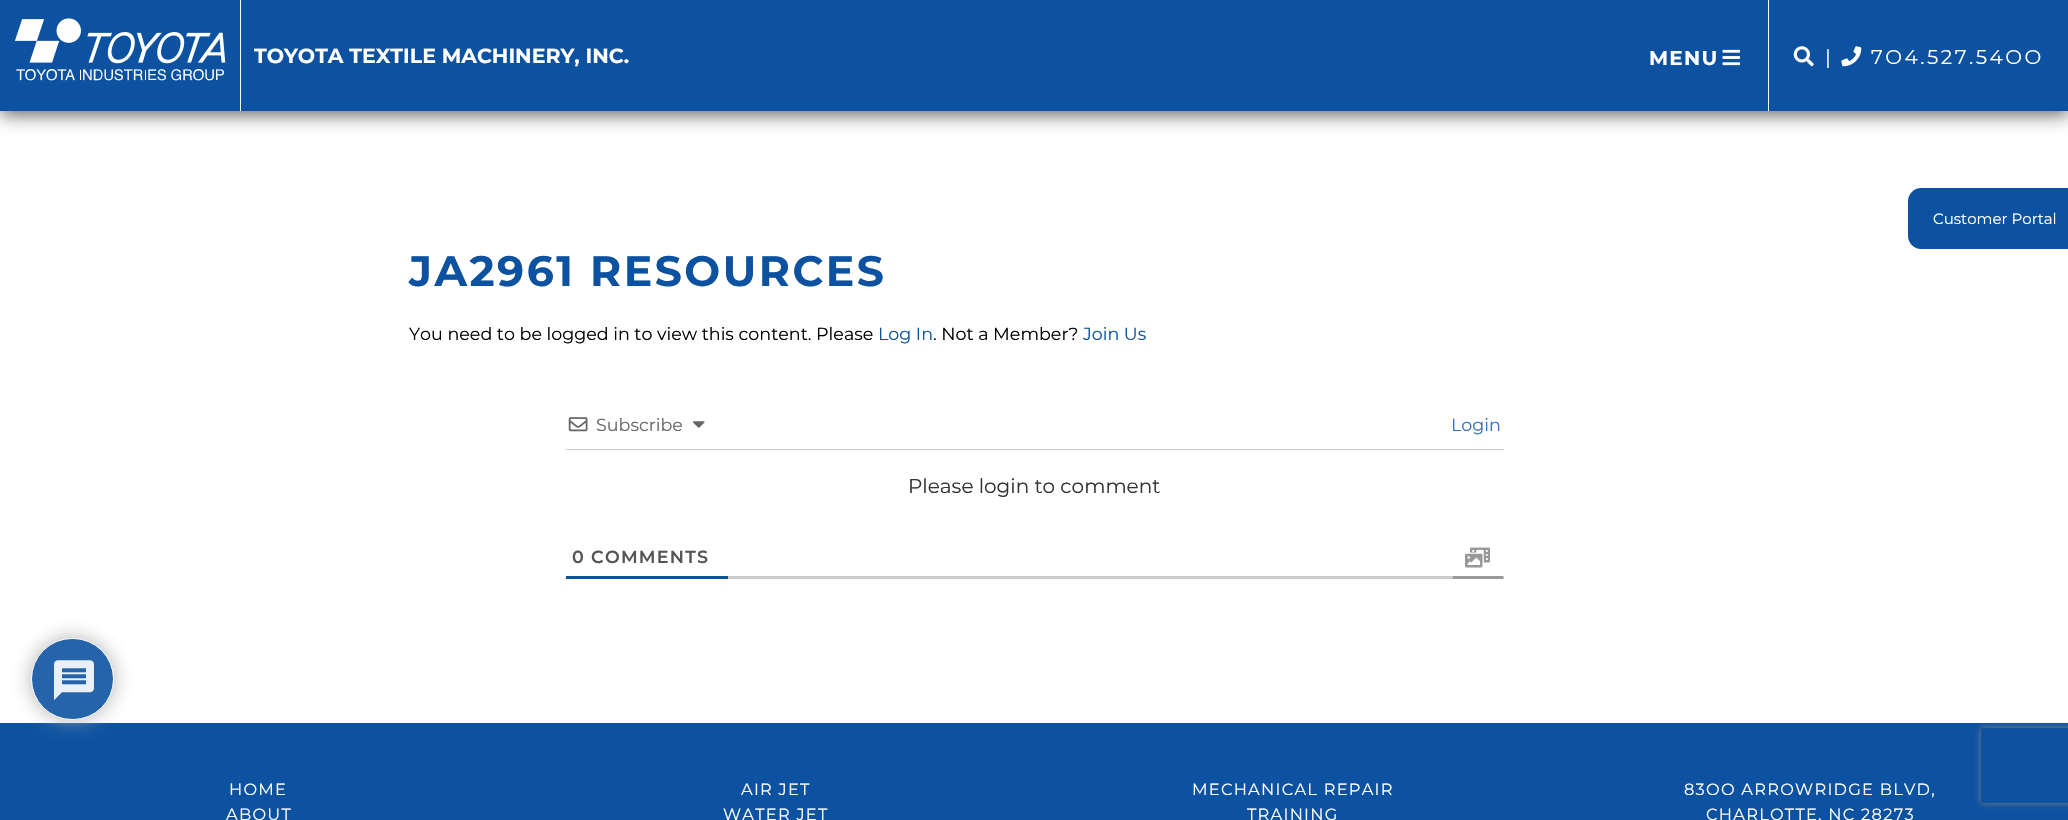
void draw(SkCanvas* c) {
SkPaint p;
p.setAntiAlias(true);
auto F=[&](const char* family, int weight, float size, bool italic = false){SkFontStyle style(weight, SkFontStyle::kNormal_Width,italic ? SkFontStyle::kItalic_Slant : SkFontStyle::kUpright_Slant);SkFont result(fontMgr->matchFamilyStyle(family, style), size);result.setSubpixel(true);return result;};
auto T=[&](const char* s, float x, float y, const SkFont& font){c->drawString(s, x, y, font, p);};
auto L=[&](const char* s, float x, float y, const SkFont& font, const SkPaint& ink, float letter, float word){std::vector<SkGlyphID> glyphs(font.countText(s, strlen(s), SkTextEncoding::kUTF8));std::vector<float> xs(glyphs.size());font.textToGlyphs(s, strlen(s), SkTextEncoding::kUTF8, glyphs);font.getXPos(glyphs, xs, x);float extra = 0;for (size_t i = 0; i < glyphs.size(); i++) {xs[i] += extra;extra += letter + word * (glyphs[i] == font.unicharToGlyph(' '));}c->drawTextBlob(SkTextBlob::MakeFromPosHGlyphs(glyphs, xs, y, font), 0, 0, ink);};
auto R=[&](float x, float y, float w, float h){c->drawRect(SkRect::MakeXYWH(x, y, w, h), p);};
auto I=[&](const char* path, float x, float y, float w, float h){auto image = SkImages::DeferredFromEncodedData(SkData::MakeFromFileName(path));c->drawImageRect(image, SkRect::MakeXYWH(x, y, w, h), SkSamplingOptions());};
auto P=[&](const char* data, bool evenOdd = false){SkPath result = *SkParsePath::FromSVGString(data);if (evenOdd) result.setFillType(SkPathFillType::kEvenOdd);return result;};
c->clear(0xffffffff);
p.setColor(0xa6000000);
p.setMaskFilter(SkMaskFilter::MakeBlur(kNormal_SkBlurStyle, 9));
c->drawRect(SkRect::MakeXYWH(0,3,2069,111),p);
p.setMaskFilter(nullptr);
p.setColor(0xff0d52a1);
R(0,0,2068,111);
p.setColor(0xffffffff);
R(240,0,1,111);
I("1.png",14,18,212,63);
auto f1 = F("Montserrat",700,20.5);
T("TOYOTA TEXTILE MACHINERY, INC.",254,63,f1);
R(1768,0,1,111);
auto f2 = F("Montserrat",700,20);
L("MENU",1649,65,f2,p,1.25,0);
I("2.png",1722,49,18,17);
I("3.png",1793,46,21,21);
auto f3 = F("Montserrat",400,20);
L("|",1825,64,f3,p,2.5,0);
I("4.png",1841,46,21,21);
L("7O4.527.54OO",1871,64,f3,p,2.5,0);
p.setColor(0xff0d52a1);
c->drawPath(P("M1921 188h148v61h-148c-7 0-13-6-13-13v-35c0-7 6-13 13-13z"),p);
auto f4 = F("Montserrat",400,15);
p.setColor(0xffffffff);
T("Customer Portal",1933,224,f4);
auto f5 = F("Montserrat",700,42.5);
p.setColor(0xff0d52a1);
L("JA2961 RESOURCES",409,286,f5,p,2.5,0);
auto f6 = F("Montserrat",400,17.5);
p.setColor(0xff000000);
T("You need to be logged in to view this content. Please",409,340,f6);
p.setColor(0xff0d52a1);
T("Log In",878,340,f6);
p.setColor(0xff000000);
T(". Not a Member?",933,340,f6);
p.setColor(0xff0d52a1);
T("Join Us",1083,340,f6);
p.setColor(0xffcccccc);
R(566,449,938,1);
I("5.png",568,417,20,15);
p.setColor(0xff666666);
T("Subscribe",596,431,f6);
I("6.png",693,421,12,7);
p.setColor(0xff3272bf);
T("Login",1451,431,f6);
p.setColor(0xff333333);
T("Please login to comment",908,493,f3);
p.setColor(0xffcccccc);
R(728,576,776,3);
p.setColor(0xff0d52a1);
R(566,576,162,3);
auto f7 = F("Montserrat",600,17.5);
p.setColor(0xff555555);
L("0 COMMENTS",572,563,f7,p,1.25,0);
p.setColor(0xff999999);
R(1453,576,50,3);
I("7.png",1465,547,25,21);
p.setColor(0xff0d52a1);
R(0,723,2068,97);
p.setColor(0xe6aaaaaa);
p.setMaskFilter(SkMaskFilter::MakeBlur(kNormal_SkBlurStyle, 9.5));
c->drawRoundRect(SkRect::MakeXYWH(31,638,83,82),41,41,p);
p.setMaskFilter(nullptr);
p.setColor(0xff2563aa);
c->drawRoundRect(SkRect::MakeXYWH(31.5,638.5,82,81),40.5,40.5,p);
p.setStroke(true);
p.setStrokeWidth(1);
p.setColor(0xffffffff);
c->drawRoundRect(SkRect::MakeXYWH(31.5,638.5,82,81),40.5,40.5,p);
I("8.png",54,660,40,41);
auto f8 = F("Montserrat",400,16.25);
p.setStroke(false);
L("HOME",229,795,f8,p,1.25,0);
L("ABOUT",226,820,f8,p,1.25,0);
L("AIR JET",741,795,f8,p,1.25,0);
L("WATER JET",723,820,f8,p,1.25,0);
L("MECHANICAL REPAIR",1192,795,f8,p,1.25,0);
L("TRAINING",1247,820,f8,p,1.25,0);
L("83OO ARROWRIDGE BLVD,",1684,795,f8,p,1.25,0);
L("CHARLOTTE, NC 28273",1706,820,f8,p,1.25,0);
c->save();
c->clipPath(P("M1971 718h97v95h-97zm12.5 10h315c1.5 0 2.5 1 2.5 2.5v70c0 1.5-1 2.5-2.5 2.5h-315c-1.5 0-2.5-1-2.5-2.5v-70c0-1.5 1-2.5 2.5-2.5z",true),true);
p.setColor(0xff808080);
p.setMaskFilter(SkMaskFilter::MakeBlur(kNormal_SkBlurStyle, 3));
c->drawRoundRect(SkRect::MakeXYWH(1981,728,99,75),2.5,2.5,p);
p.setMaskFilter(nullptr);
c->restore();
}
